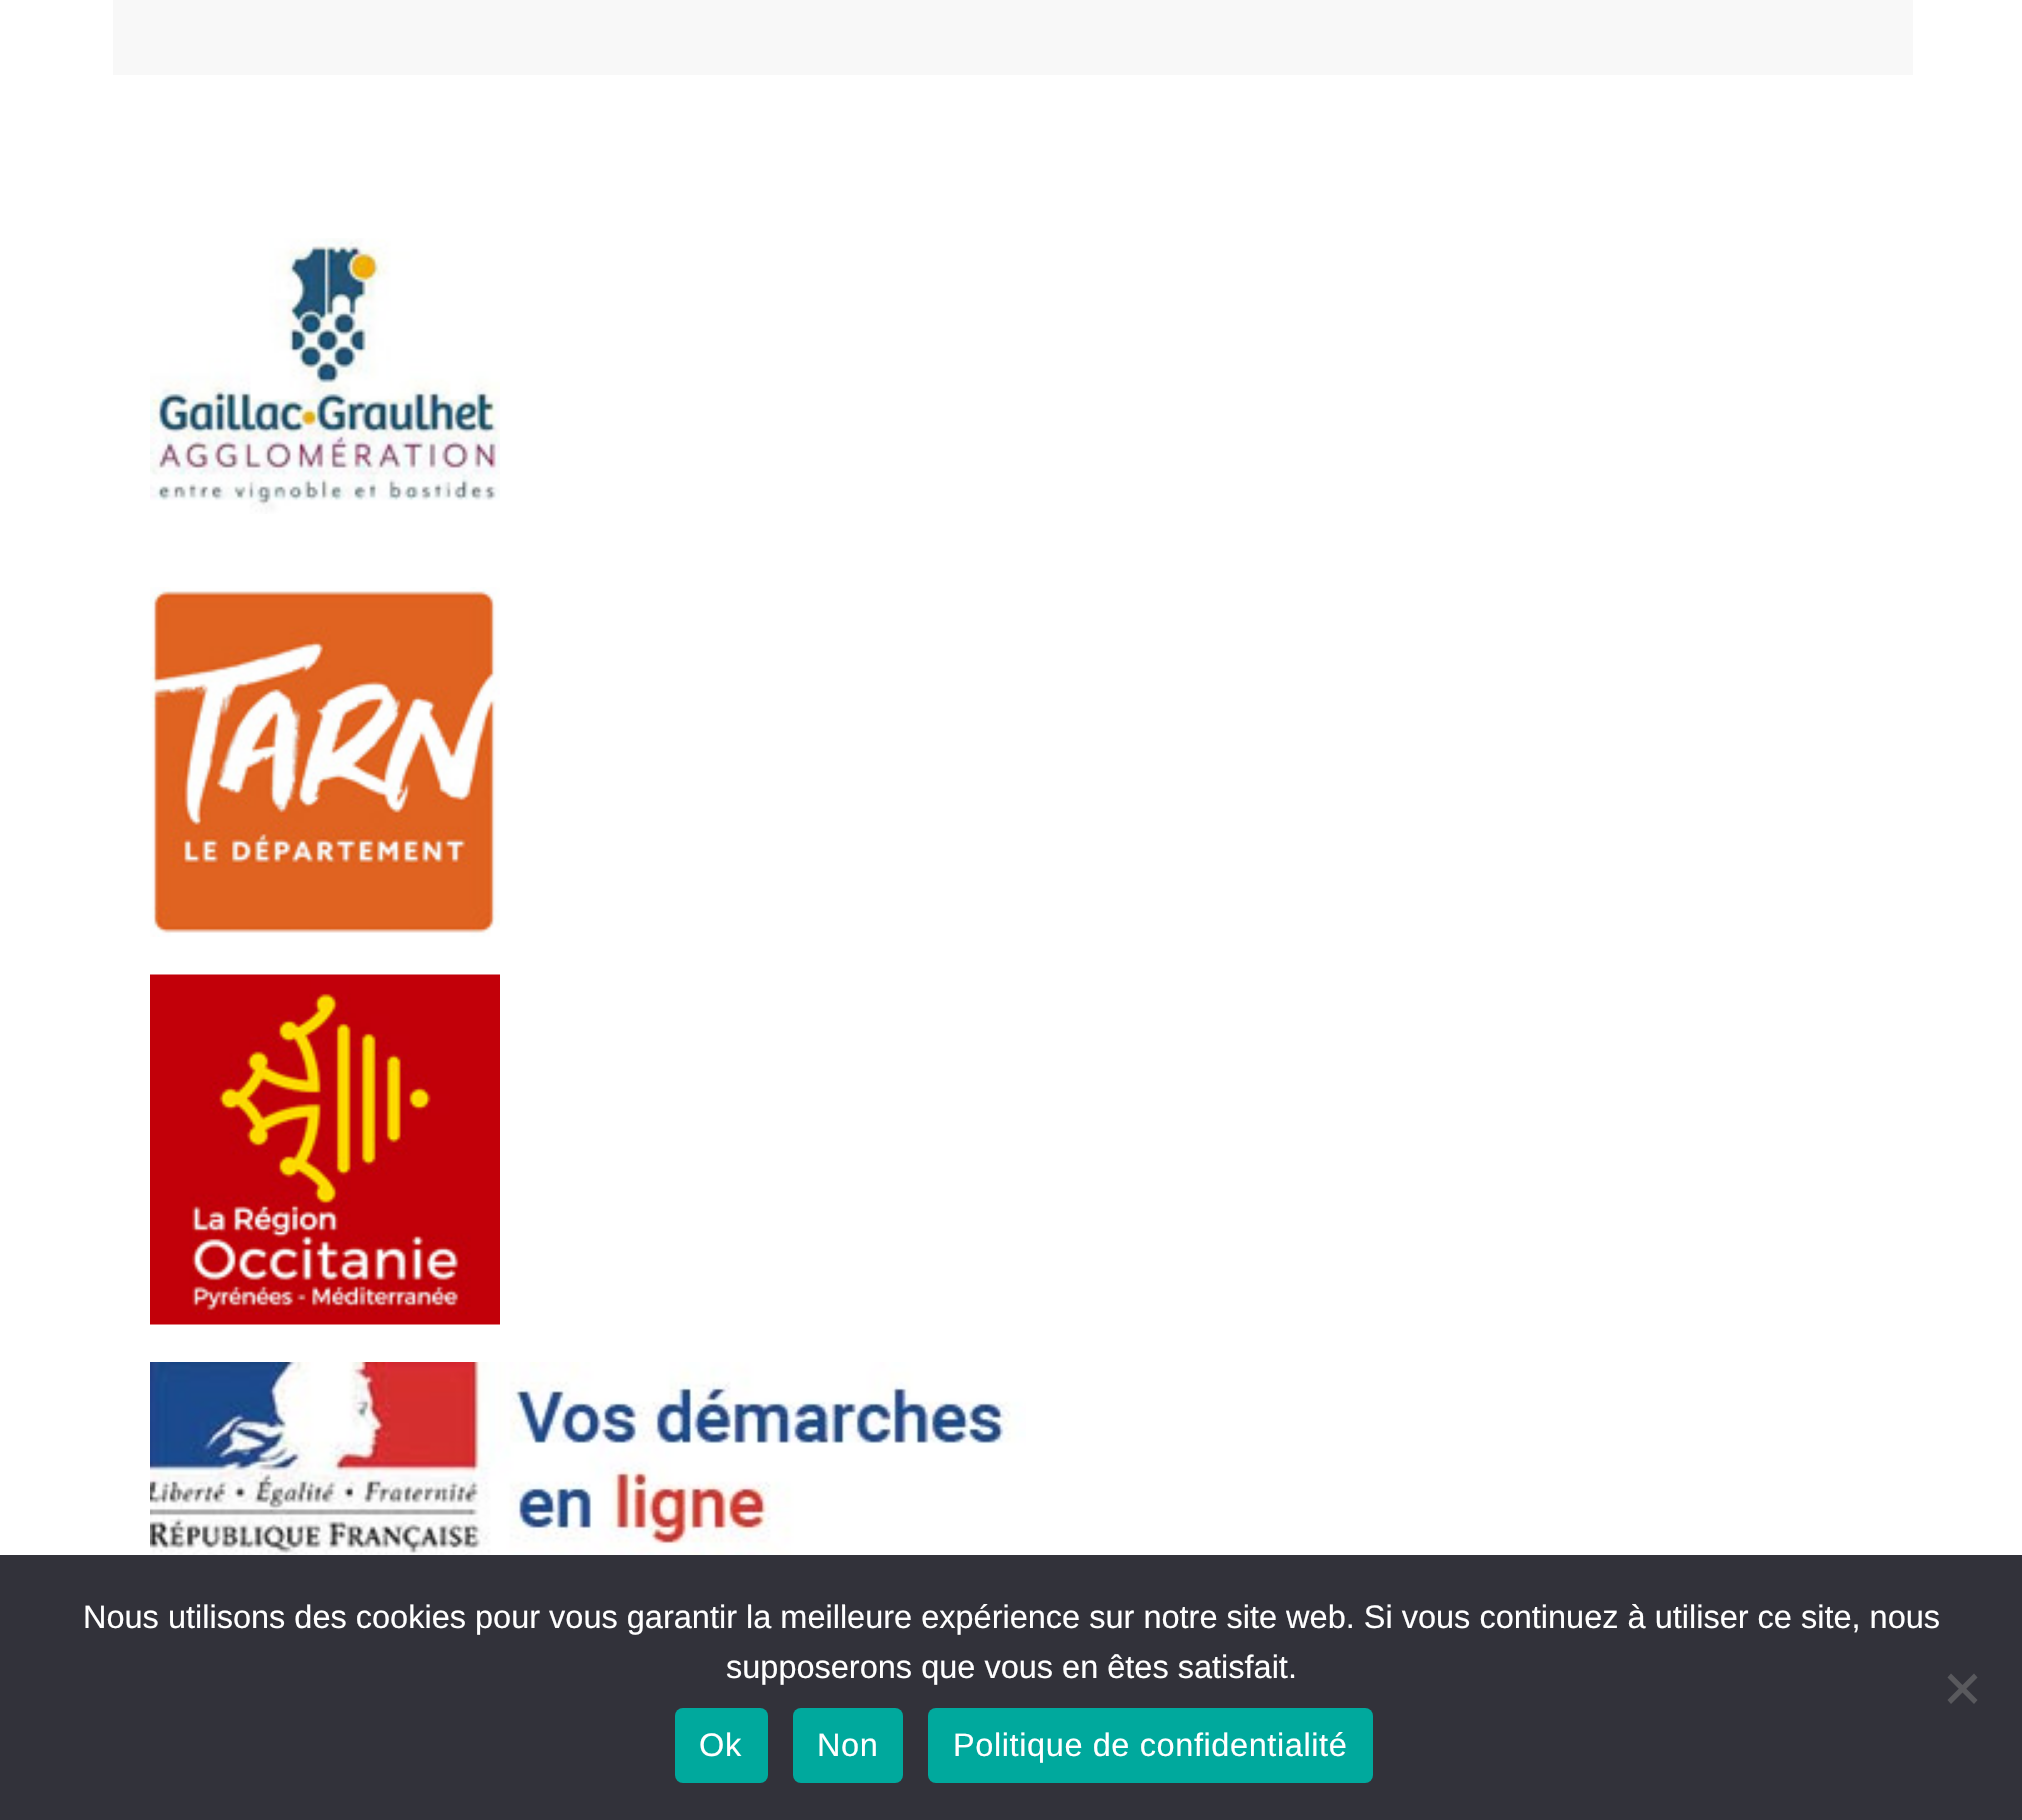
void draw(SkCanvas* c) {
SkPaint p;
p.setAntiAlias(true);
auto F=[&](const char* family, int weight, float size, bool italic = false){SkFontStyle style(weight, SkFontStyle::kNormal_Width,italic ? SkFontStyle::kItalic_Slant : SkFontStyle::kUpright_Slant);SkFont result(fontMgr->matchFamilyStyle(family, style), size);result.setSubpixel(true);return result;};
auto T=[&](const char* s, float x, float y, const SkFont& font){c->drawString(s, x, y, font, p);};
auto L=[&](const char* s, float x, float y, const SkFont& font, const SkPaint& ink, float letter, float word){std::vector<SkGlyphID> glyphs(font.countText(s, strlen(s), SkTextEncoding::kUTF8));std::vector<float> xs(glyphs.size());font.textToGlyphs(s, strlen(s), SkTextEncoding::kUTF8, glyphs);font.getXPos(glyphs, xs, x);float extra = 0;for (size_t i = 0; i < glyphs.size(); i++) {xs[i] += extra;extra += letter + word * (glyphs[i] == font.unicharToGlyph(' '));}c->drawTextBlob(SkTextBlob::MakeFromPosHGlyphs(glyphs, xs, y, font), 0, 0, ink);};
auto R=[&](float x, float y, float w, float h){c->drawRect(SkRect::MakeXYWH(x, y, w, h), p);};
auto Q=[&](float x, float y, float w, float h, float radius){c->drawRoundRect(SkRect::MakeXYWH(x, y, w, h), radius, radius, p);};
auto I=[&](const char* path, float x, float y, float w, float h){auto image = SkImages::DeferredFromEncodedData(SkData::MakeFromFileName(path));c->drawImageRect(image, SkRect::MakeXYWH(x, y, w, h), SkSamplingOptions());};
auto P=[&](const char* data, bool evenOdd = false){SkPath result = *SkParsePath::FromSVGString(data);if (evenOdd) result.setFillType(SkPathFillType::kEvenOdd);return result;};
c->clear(0xffffffff);
p.setColor(0xfff8f8f8);
R(113,0,1800,75);
I("1.png",150,238,350,276);
I("2.png",150,587,350,350);
I("3.png",150,974,350,351);
I("4.png",150,1362,876,193);
p.setColor(0xff32323a);
R(0,1555,2022,265);
auto f1 = F("Liberation Sans",400,32.5);
p.setColor(0xffffffff);
T("Nous utilisons des cookies pour vous garantir la meilleure expérience sur notre site web. Si vous continuez à utiliser ce site, nous",83,1628,f1);
T("supposerons que vous en êtes satisfait.",726,1678,f1);
p.setColor(0xff59595d);
c->drawPath(P("M1974 1673.5l3.5 4l-26.5 26.5l-3.5-4z"),p);
c->drawPath(P("M1947.5 1677.5l3.5-4l26.5 26.5l-3.5 4z"),p);
p.setColor(0xff00a99d);
Q(675,1708,93,75,8);
p.setColor(0xffffffff);
L("Ok",699,1756,f1,p,.6,0);
p.setColor(0xff00a99d);
Q(793,1708,110,75,8);
p.setColor(0xffffffff);
L("Non",817,1756,f1,p,.6,0);
p.setColor(0xff00a99d);
Q(928,1708,445,75,8);
p.setColor(0xffffffff);
L("Politique de confidentialité",953,1756,f1,p,.6,0);
}
